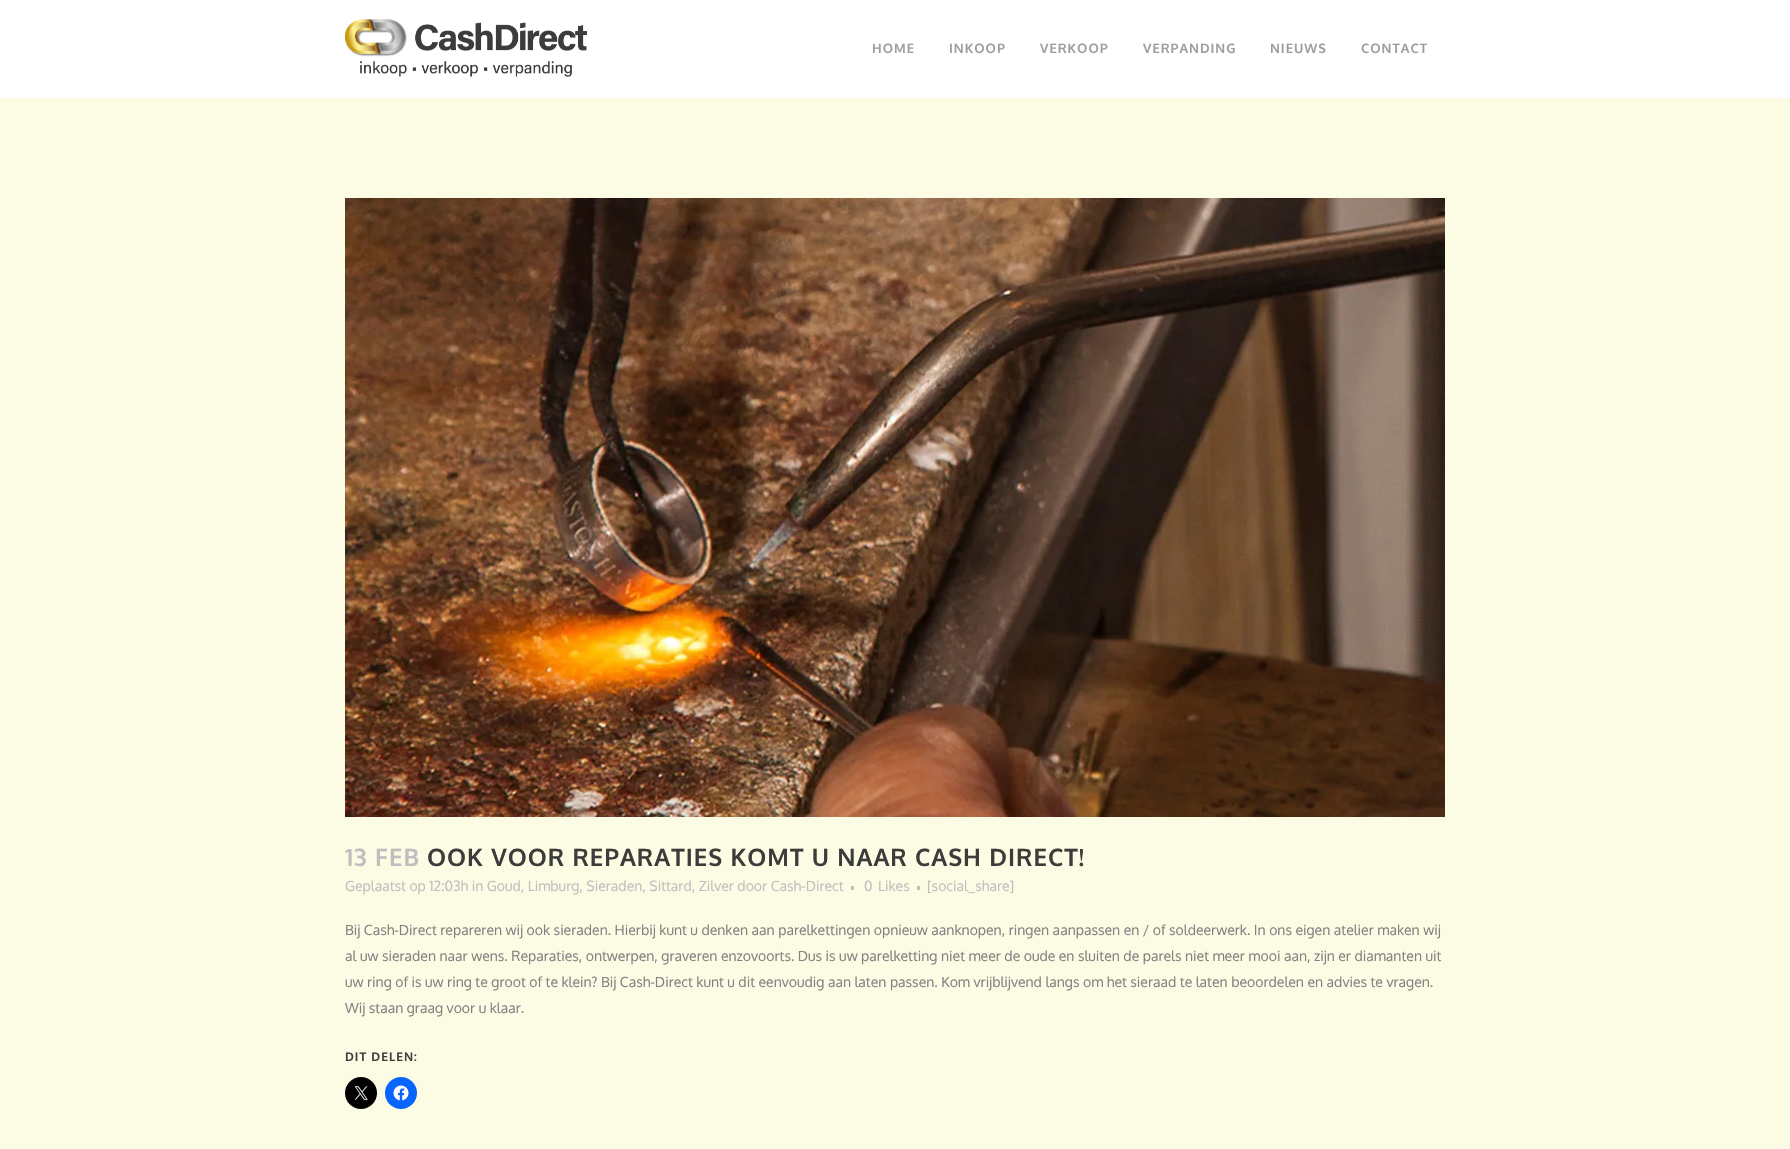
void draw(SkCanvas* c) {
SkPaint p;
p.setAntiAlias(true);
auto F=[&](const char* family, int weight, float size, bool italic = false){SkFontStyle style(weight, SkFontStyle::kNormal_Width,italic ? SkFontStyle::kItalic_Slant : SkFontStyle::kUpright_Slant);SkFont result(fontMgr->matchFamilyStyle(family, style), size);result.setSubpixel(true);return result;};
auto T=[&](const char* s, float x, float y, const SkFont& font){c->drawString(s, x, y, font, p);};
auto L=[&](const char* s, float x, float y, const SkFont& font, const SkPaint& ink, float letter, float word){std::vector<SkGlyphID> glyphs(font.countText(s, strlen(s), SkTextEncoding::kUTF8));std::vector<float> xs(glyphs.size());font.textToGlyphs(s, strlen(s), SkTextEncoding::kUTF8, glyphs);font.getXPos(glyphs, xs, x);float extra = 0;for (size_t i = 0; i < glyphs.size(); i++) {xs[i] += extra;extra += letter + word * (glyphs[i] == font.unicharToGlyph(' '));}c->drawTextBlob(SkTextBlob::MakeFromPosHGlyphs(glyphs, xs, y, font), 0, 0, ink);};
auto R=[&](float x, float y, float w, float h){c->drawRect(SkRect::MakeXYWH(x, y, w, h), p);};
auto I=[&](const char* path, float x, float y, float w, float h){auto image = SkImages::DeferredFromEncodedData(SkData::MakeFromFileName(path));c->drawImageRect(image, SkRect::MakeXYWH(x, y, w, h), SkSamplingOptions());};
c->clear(0xfffcfbe3);
p.setColor(0xffffffff);
R(0,0,1790,98);
I("1.png",345,19,242,58);
auto f1 = F("Oxygen",700,13);
p.setColor(0xff9d9d9d);
L("HOME",872,53,f1,p,1,0);
L("INKOOP",949,53,f1,p,1,0);
L("VERKOOP",1040,53,f1,p,1,0);
L("VERPANDING",1143,53,f1,p,1,0);
L("NIEUWS",1270,53,f1,p,1,0);
L("CONTACT",1361,53,f1,p,1,0);
I("2.png",345,198,1100,619);
auto f2 = F("Oxygen",700,24);
p.setColor(0xffbebebe);
L("13 FEB",345,866,f2,p,1,0);
p.setColor(0xff3c3c3b);
L("OOK VOOR REPARATIES KOMT U NAAR CASH DIRECT!",427,866,f2,p,1,0);
auto f3 = F("Oxygen",400,14);
p.setColor(0xffbebebe);
T("Geplaatst op 12:03h in Goud, Limburg, Sieraden, Sittard, Zilver door Cash-Direct",345,891,f3);
R(851,886,3,4);
T("0",864,891,f3);
T("Likes",878,891,f3);
R(917,886,3,4);
T("[social_share]",927,891,f3);
p.setColor(0xff818181);
T("Bij Cash-Direct repareren wij ook sieraden. Hierbij kunt u denken aan parelkettingen opnieuw aanknopen, ringen aanpassen en / of soldeerwerk. In ons eigen atelier maken wij",345,935,f3);
T("al uw sieraden naar wens. Reparaties, ontwerpen, graveren enzovoorts. Dus is uw parelketting niet meer de oude en sluiten de parels niet meer mooi aan, zijn er diamanten uit",345,961,f3);
T("uw ring of is uw ring te groot of te klein? Bij Cash-Direct kunt u dit eenvoudig aan laten passen. Kom vrijblijvend langs om het sieraad te laten beoordelen en advies te vragen.",345,987,f3);
T("Wij staan graag voor u klaar.",345,1013,f3);
auto f4 = F("Oxygen",700,12);
p.setColor(0xff3c3c3b);
L("DIT DELEN:",345,1061,f4,p,1,0);
p.setColor(0xff000000);
c->drawCircle(361,1093,16,p);
I("3.png",354,1086,14,14);
p.setColor(0xff0866ff);
c->drawCircle(401,1093,16,p);
I("4.png",393,1085,16,16);
}
